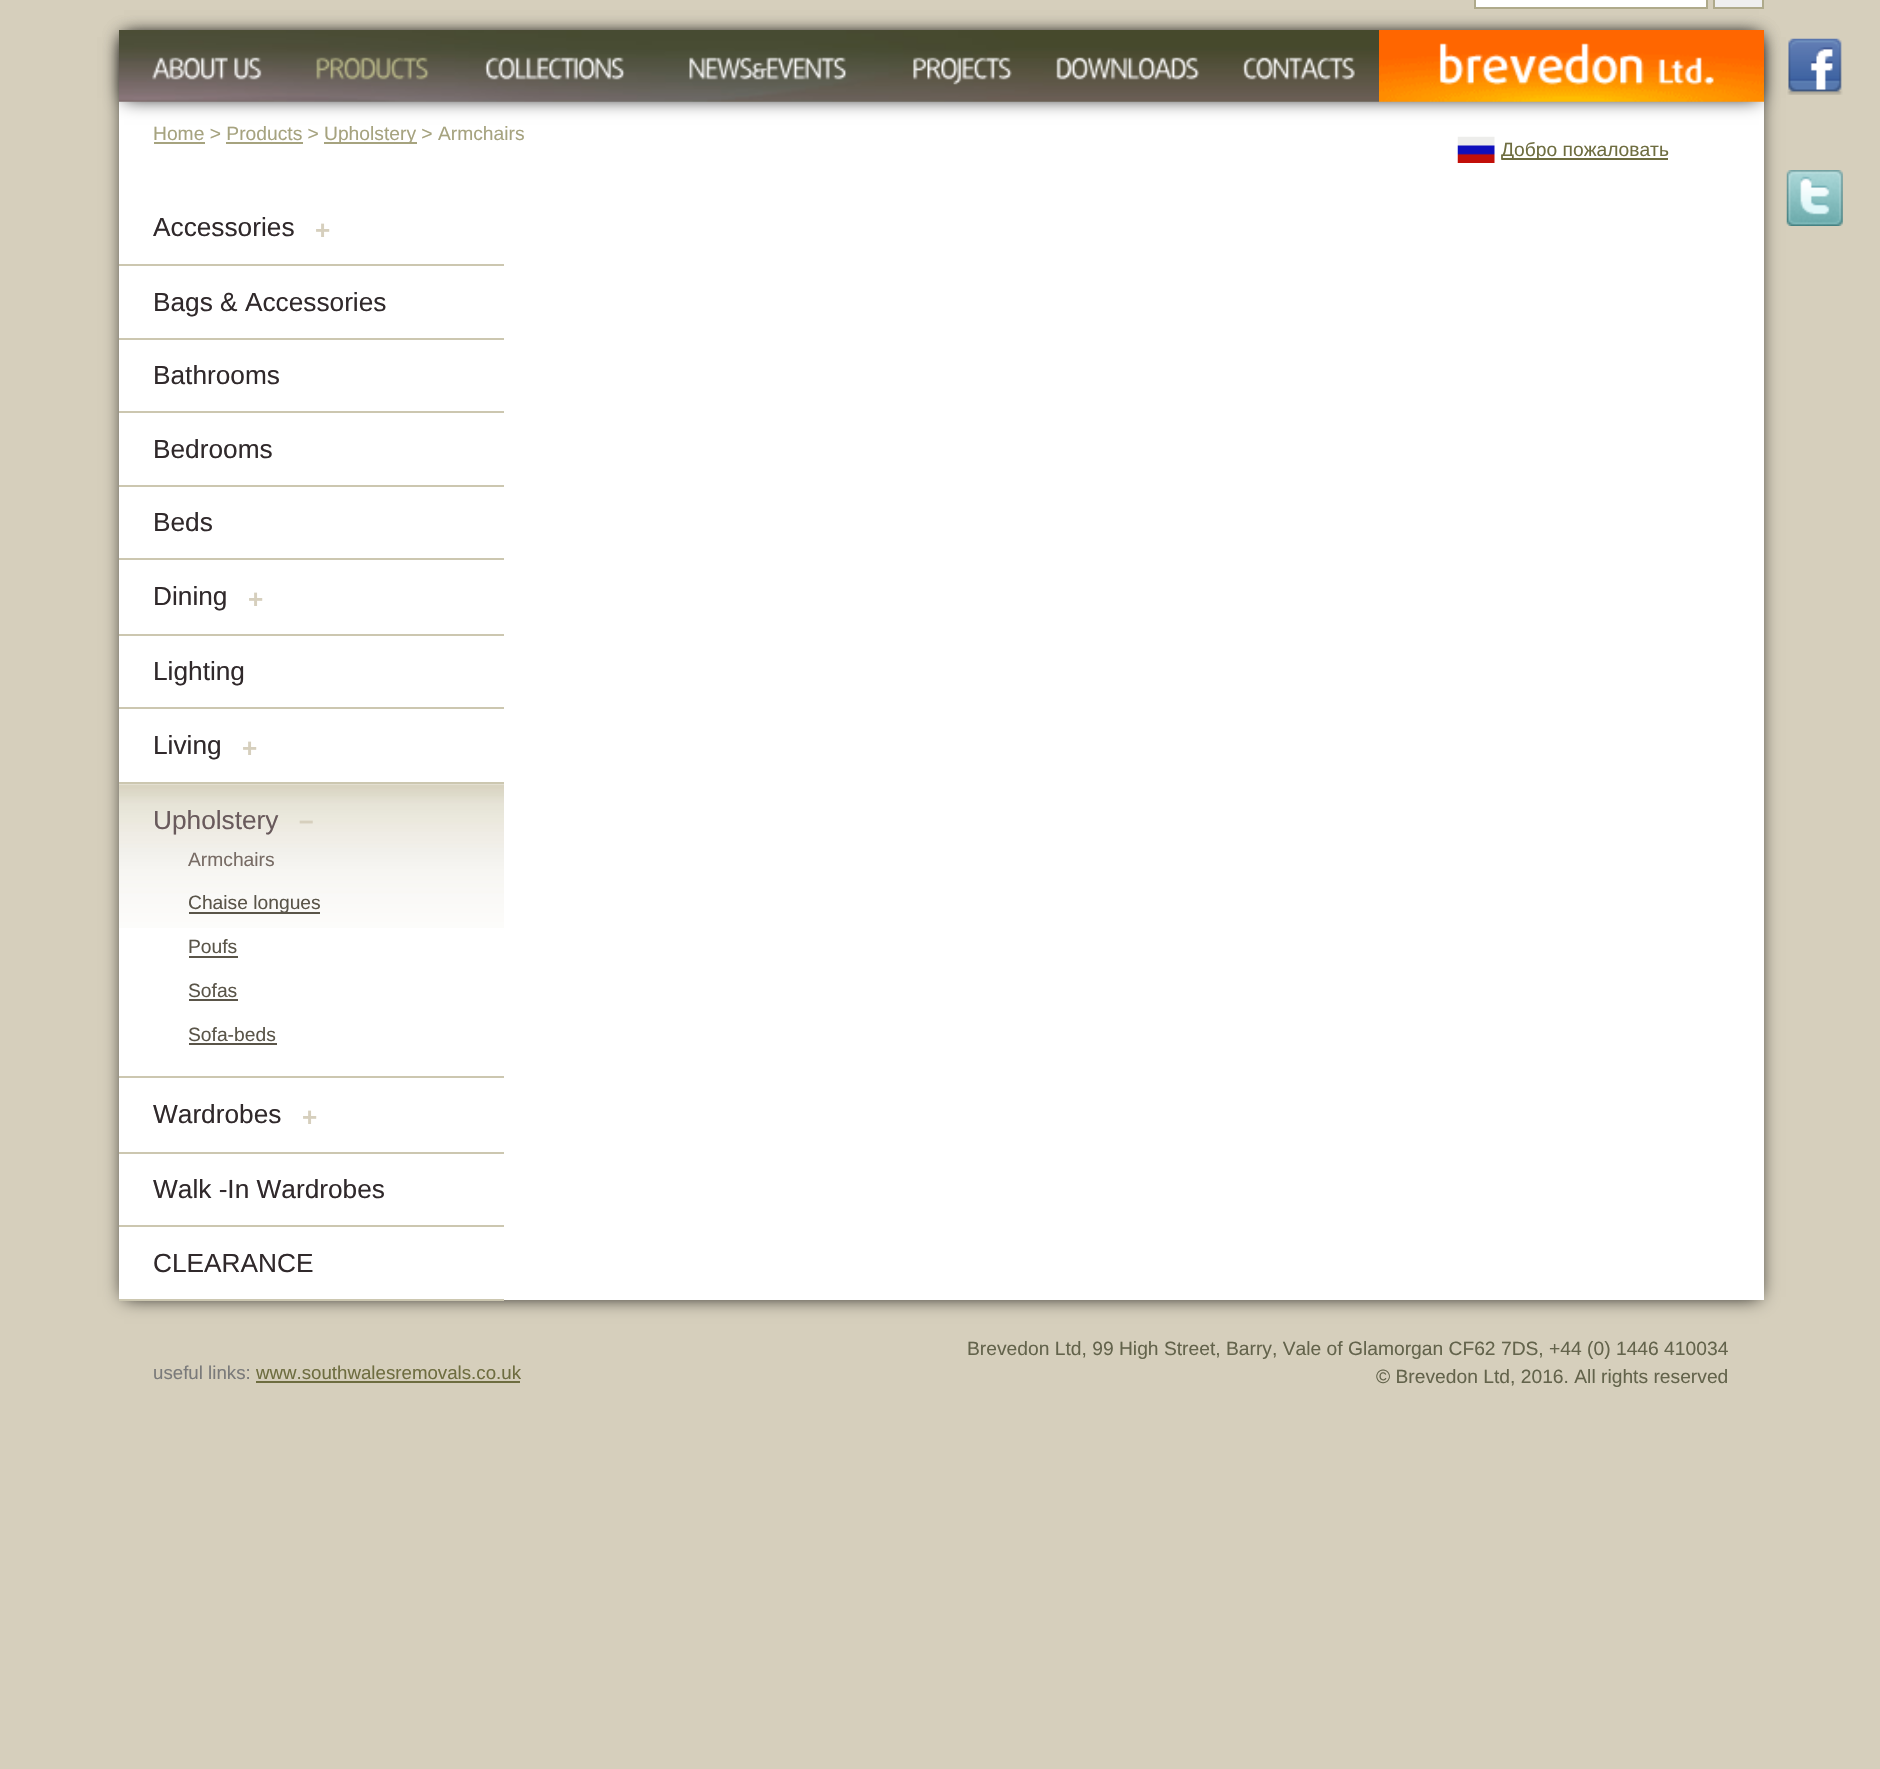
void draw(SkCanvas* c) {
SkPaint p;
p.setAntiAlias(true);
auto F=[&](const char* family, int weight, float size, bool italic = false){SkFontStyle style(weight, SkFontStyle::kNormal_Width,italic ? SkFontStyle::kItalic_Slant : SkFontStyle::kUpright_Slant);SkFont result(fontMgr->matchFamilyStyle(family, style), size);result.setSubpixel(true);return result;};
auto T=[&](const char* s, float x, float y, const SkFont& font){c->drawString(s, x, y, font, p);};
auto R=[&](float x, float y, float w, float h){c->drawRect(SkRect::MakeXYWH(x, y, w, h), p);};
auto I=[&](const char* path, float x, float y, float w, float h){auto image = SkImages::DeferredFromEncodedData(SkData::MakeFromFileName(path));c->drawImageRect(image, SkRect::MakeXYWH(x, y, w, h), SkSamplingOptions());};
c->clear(0xffd6cfbc);
p.setColor(0xff000000);
p.setMaskFilter(SkMaskFilter::MakeBlur(kNormal_SkBlurStyle, 9));
c->drawRect(SkRect::MakeXYWH(124,37,1635,1260),p);
p.setMaskFilter(nullptr);
p.setColor(0xffffffff);
R(119,101,1645,1199);
auto f1 = F("Liberation Sans",400,19.25);
p.setColor(0xffa6a37f);
T("Home > Products >",153,140,f1);
R(154,142,51,2);
R(324,142,93,2);
T("Upholstery > Armchairs",324,140,f1);
R(226,142,77,2);
p.setColor(0xff000000);
p.setMaskFilter(SkMaskFilter::MakeBlur(kNormal_SkBlurStyle, 9));
c->drawRect(SkRect::MakeXYWH(124,37,1635,61),p);
p.setMaskFilter(nullptr);
p.setColor(0xffffffff);
c->drawRect(SkRect::MakeXYWH(1475,-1,232,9),p);
p.setStroke(true);
p.setStrokeWidth(2);
p.setColor(0xffafaa8b);
c->drawRect(SkRect::MakeXYWH(1475,-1,232,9),p);
p.setStroke(false);
p.setColor(0xffefefef);
c->drawRect(SkRect::MakeXYWH(1714,-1,49,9),p);
p.setStroke(true);
p.setColor(0xffafaa8b);
c->drawRect(SkRect::MakeXYWH(1714,-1,49,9),p);
I("1.png",119,30,1260,72);
I("2.png",152,57,76,23);
I("3.png",234,57,28,23);
I("4.png",316,57,113,23);
I("5.png",484,57,141,23);
I("6.png",689,57,158,23);
I("7.png",913,57,99,28);
I("8.png",1056,57,144,23);
I("9.png",1242,57,113,23);
I("10.png",1379,30,385,72);
I("11.png",1787,38,56,57);
I("12.png",1457,136,38,27);
p.setStroke(false);
p.setColor(0xff6e6d40);
R(1502,158,166,2);
T("Добро пожаловать",1501,156,f1);
I("13.png",1786,170,57,56);
p.setColor(0xffccc7b0);
R(119,264,385,2);
auto f2 = F("Liberation Sans",400,26.25);
p.setColor(0xff30292b);
T("Accessories",153,236,f2);
auto f3 = F("Liberation Sans",700,26);
p.setColor(0xffd6cfbd);
T("+",315,239,f3);
p.setColor(0xffccc7b0);
R(119,338,385,2);
p.setColor(0xff30292b);
T("Bags & Accessories",153,311,f2);
p.setColor(0xffccc7b0);
R(119,411,385,2);
p.setColor(0xff30292b);
T("Bathrooms",153,384,f2);
p.setColor(0xffccc7b0);
R(119,485,385,2);
p.setColor(0xff30292b);
T("Bedrooms",153,458,f2);
p.setColor(0xffccc7b0);
R(119,558,385,2);
p.setColor(0xff30292b);
T("Beds",153,531,f2);
p.setColor(0xffccc7b0);
R(119,634,385,2);
p.setColor(0xff30292b);
T("Dining",153,605,f2);
p.setColor(0xffd6cfbd);
T("+",248,608,f3);
p.setColor(0xffccc7b0);
R(119,707,385,2);
p.setColor(0xff30292b);
T("Lighting",153,680,f2);
p.setColor(0xffccc7b0);
R(119,782,385,2);
p.setColor(0xff30292b);
T("Living",153,754,f2);
p.setColor(0xffd6cfbd);
T("+",242,757,f3);
I("14.png",119,784,385,144);
p.setColor(0xffccc7b0);
R(119,1076,385,2);
p.setColor(0xff695a5c);
T("Upholstery",153,829,f2);
p.setColor(0xffd6cfbd);
T("–",299,829,f3);
p.setColor(0xff786c65);
T("Armchairs",188,866,f1);
p.setColor(0xff5a5549);
R(189,912,131,2);
T("Chaise longues",188,909,f1);
T("Poufs",188,953,f1);
R(189,956,49,2);
T("Sofas",188,997,f1);
R(189,999,49,2);
T("Sofa-beds",188,1041,f1);
R(189,1043,88,2);
p.setColor(0xffccc7b0);
R(119,1152,385,2);
p.setColor(0xff30292b);
T("Wardrobes",153,1123,f2);
p.setColor(0xffd6cfbd);
T("+",302,1126,f3);
p.setColor(0xffccc7b0);
R(119,1225,385,2);
p.setColor(0xff30292b);
T("Walk -In Wardrobes",153,1198,f2);
p.setColor(0xffccc7b0);
R(119,1299,385,2);
p.setColor(0xff30292b);
T("CLEARANCE",153,1272,f2);
auto f4 = F("Liberation Sans",400,18.7);
p.setColor(0xff7a7a7a);
T("useful links:",153,1379,f4);
p.setColor(0xff6e6d40);
T("www.southwalesremovals.co.uk",256,1379,f4);
R(256,1381,264,2);
p.setColor(0xff63634b);
T("Brevedon Ltd, 99 High Street, Barry, Vale of Glamorgan CF62 7DS, +44 (0) 1446 410034",967,1355,f1);
T("© Brevedon Ltd, 2016. All rights reserved",1376,1383,f1);
}
